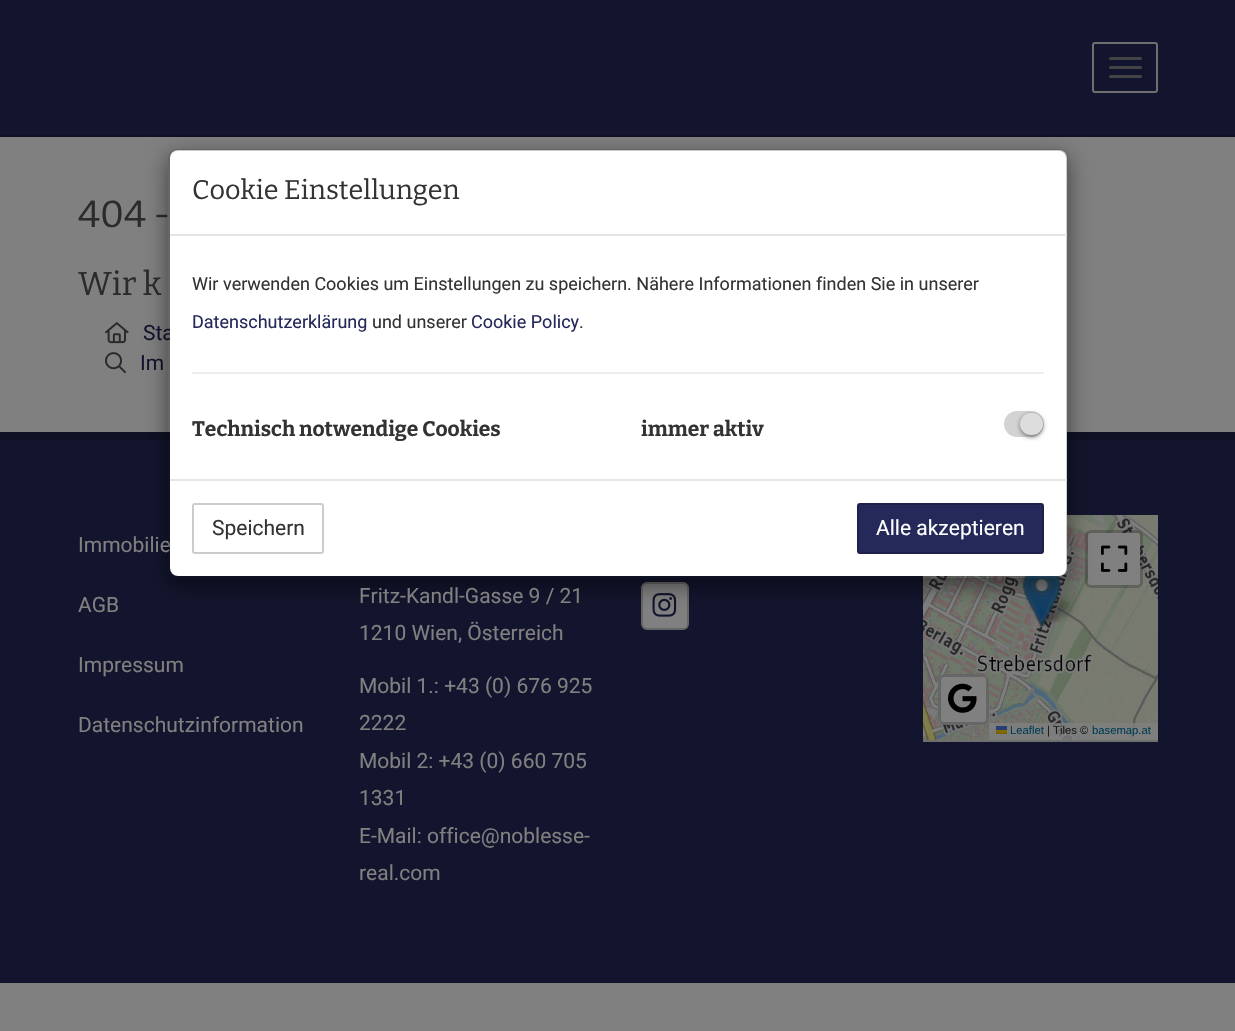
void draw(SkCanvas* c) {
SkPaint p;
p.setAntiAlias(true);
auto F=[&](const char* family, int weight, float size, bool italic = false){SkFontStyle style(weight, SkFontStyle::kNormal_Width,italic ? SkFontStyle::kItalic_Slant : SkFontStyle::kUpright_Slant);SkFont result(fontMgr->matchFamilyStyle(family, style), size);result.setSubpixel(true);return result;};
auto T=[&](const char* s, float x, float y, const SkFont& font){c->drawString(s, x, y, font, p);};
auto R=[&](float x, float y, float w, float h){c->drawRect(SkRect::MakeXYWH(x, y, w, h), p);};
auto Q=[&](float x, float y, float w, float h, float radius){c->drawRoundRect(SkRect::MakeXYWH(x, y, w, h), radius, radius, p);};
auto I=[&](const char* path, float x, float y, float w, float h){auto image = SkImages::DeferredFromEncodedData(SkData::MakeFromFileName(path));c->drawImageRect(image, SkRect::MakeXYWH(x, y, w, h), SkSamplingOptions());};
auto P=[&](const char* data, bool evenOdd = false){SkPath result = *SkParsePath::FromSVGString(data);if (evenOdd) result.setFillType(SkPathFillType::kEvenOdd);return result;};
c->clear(0xff808080);
p.setColor(0xff12152d);
R(0,0,1235,135);
p.setColor(0xff0f1124);
R(0,135,1235,2);
p.setStroke(true);
p.setStrokeWidth(2);
p.setColor(0xff6f6f6f);
c->drawRoundRect(SkRect::MakeXYWH(1093,43,64,49),2,2,p);
p.setStroke(false);
p.setColor(0xff444444);
Q(1109,57,33,3,1.5);
Q(1109,66,33,3,1.5);
Q(1109,75,33,3,1.5);
auto f1 = F("Bitter",400,37.5);
p.setColor(0xff2b2b2b);
T("404 -",78,227,f1);
auto f2 = F("Bitter",400,33);
T("Wir k",78,295,f2);
I("1.png",105,322,24,22);
auto f3 = F("Roboto",400,21);
p.setColor(0xff12152d);
T("Sta",143,340,f3);
I("2.png",105,352,21,21);
T("Im",140,370,f3);
R(0,440,1235,543);
p.setColor(0xff0f1124);
R(0,432,1235,8);
p.setColor(0xff808080);
c->drawRoundRect(SkRect::MakeXYWH(642,583,46,46),5,5,p);
p.setStroke(true);
p.setColor(0xff666666);
c->drawRoundRect(SkRect::MakeXYWH(642,583,46,46),5,5,p);
I("3.png",652,593,25,24);
I("4.png",923,576,123,164);
I("5.png",1045,515,113,225);
I("7.png",1035,585,45,42);
I("6.png",1022,576,39,51);
p.setStrokeWidth(3);
p.setColor(0x33000000);
c->drawRoundRect(SkRect::MakeXYWH(1086.5,531.5,55,55),4.5,4.5,p);
p.setStroke(false);
p.setColor(0xff808080);
Q(1088,533,52,52,3);
I("8.png",1101,545,27,27);
c->save();
c->clipPath(P("M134 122h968v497h-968zm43 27h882c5 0 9 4 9 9v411c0 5-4 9-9 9h-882c-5 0-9-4-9-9v-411c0-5 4-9 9-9z",true),true);
p.setColor(0x80000000);
p.setMaskFilter(SkMaskFilter::MakeBlur(kNormal_SkBlurStyle, 11));
c->drawRoundRect(SkRect::MakeXYWH(168,156,900,429),9,9,p);
p.setMaskFilter(nullptr);
c->restore();
p.setColor(0xffffffff);
Q(170,150,897,426,8);
p.setColor(0xff808080);
T("Immobilie",78,552,f3);
p.setStroke(true);
p.setStrokeWidth(2);
p.setColor(0x33000000);
c->drawRoundRect(SkRect::MakeXYWH(169,150,898,427),8,8,p);
p.setStroke(false);
p.setColor(0xffe5e5e5);
R(170,234,897,2);
auto f4 = F("Bitter",400,27);
p.setColor(0xff333333);
T("Cookie Einstellungen",192,199,f4);
auto f5 = F("Roboto",400,18);
T("Wir verwenden Cookies um Einstellungen zu speichern. Nähere Informationen finden Sie in unserer",192,290,f5);
p.setColor(0xff24295a);
T("Datenschutzerklärung",192,328,f5);
p.setColor(0xff333333);
T("und unserer",372,328,f5);
p.setColor(0xff24295a);
T("Cookie Policy",471,328,f5);
p.setColor(0xff333333);
T(".",579,328,f5);
p.setColor(0xffeeeeee);
R(192,372,852,2);
auto f6 = F("Bitter",700,21);
p.setColor(0xff333333);
T("Technisch notwendige Cookies",192,436,f6);
T("immer aktiv",641,436,f6);
p.setColor(0xffd3d3d3);
c->drawRoundRect(SkRect::MakeXYWH(1005,412,38,24),12,12,p);
p.setStroke(true);
c->drawRoundRect(SkRect::MakeXYWH(1005,412,38,24),12,12,p);
p.setStroke(false);
p.setColor(0xff777777);
p.setMaskFilter(SkMaskFilter::MakeBlur(kNormal_SkBlurStyle, 2));
c->drawRoundRect(SkRect::MakeXYWH(1020,414,23,23),11.5,11.5,p);
p.setMaskFilter(nullptr);
p.setColor(0xffdddddd);
Q(1020,413,23,22,11);
p.setColor(0xffe5e5e5);
R(170,479,897,2);
p.setStroke(true);
p.setColor(0xffcccccc);
c->drawRoundRect(SkRect::MakeXYWH(193,504,130,49),2,2,p);
p.setStroke(false);
p.setColor(0xff333333);
T("Speichern",212,535,f3);
p.setColor(0xff24295a);
c->drawRoundRect(SkRect::MakeXYWH(858,504,185,49),2,2,p);
p.setStroke(true);
p.setColor(0xff1d2148);
c->drawRoundRect(SkRect::MakeXYWH(858,504,185,49),2,2,p);
p.setStroke(false);
p.setColor(0xffffffff);
T("Alle akzeptieren",876,535,f3);
p.setColor(0xff808080);
T("AGB",78,612,f3);
T("Impressum",78,672,f3);
T("Datenschutzinformation",78,732,f3);
T("Fritz-Kandl-Gasse 9 / 21",359,603,f3);
T("1210 Wien, Österreich",359,640,f3);
T("Mobil 1.: +43 (0) 676 925",359,693,f3);
T("2222",359,730,f3);
T("Mobil 2: +43 (0) 660 705",359,768,f3);
T("1331",359,805,f3);
T("E-Mail: office@noblesse-",359,843,f3);
T("real.com",359,880,f3);
p.setColor(0xff6f6f6f);
R(923,740,235,2);
p.setColor(0xff808080);
Q(938,674,51,51,8);
p.setStroke(true);
p.setStrokeWidth(3);
p.setColor(0x33000000);
c->drawRoundRect(SkRect::MakeXYWH(939.5,675.5,48,48),6.5,6.5,p);
p.setStroke(false);
p.setColor(0xff808080);
Q(941,677,45,45,3);
I("9.png",948,683,29,30);
p.setColor(0xcc808080);
R(989,723,169,17);
auto f7 = F("Liberation Sans",400,11.25);
p.setColor(0xff003c54);
T("Leaflet",1010,734,f7);
p.setColor(0xff263e71);
R(996,726,11,4);
p.setColor(0xff806b00);
R(996,730,11,3);
p.setColor(0xff705e00);
R(996,733,11,1);
p.setColor(0xff1a1a1a);
T("| Tiles ©",1047,734,f7);
p.setColor(0xff003c54);
T("basemap.at",1092,734,f7);
}
